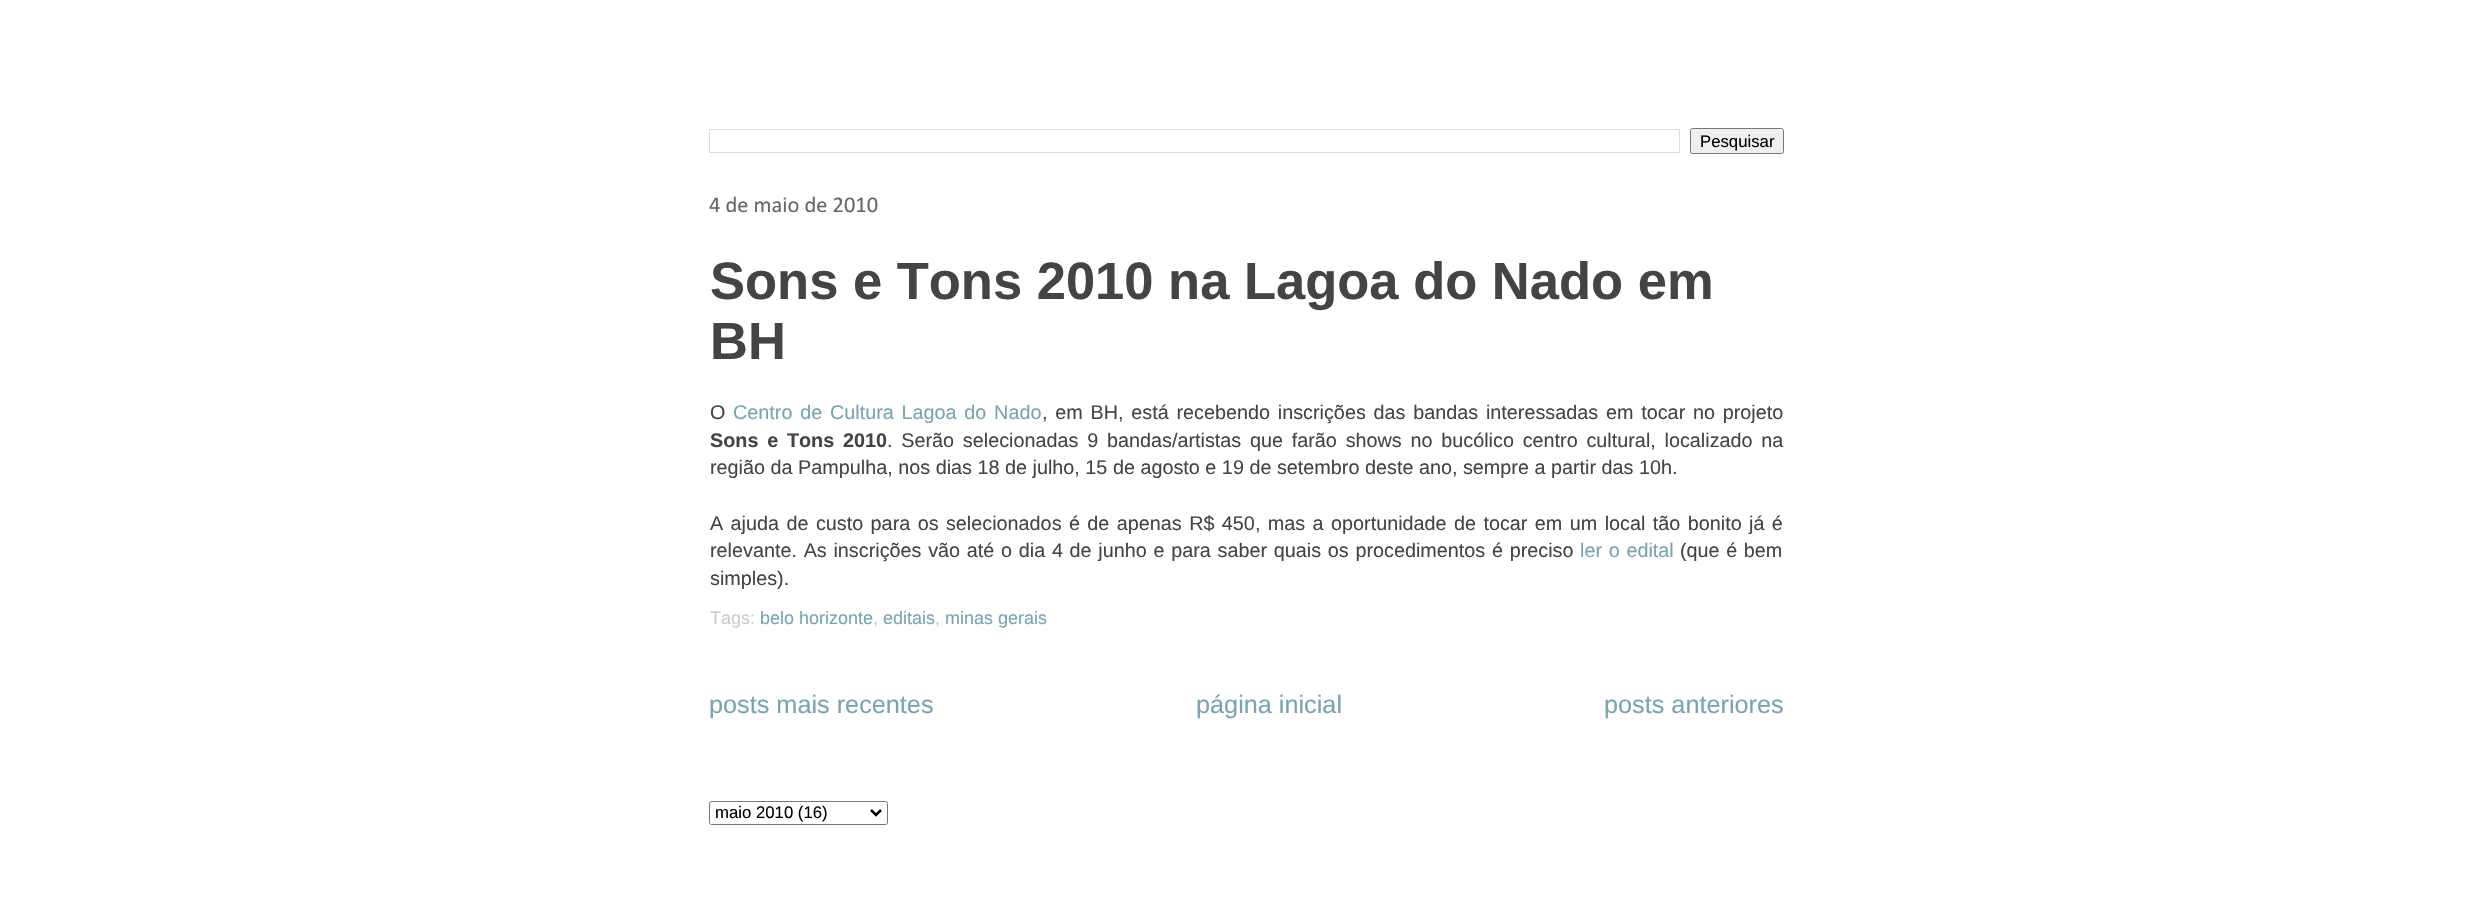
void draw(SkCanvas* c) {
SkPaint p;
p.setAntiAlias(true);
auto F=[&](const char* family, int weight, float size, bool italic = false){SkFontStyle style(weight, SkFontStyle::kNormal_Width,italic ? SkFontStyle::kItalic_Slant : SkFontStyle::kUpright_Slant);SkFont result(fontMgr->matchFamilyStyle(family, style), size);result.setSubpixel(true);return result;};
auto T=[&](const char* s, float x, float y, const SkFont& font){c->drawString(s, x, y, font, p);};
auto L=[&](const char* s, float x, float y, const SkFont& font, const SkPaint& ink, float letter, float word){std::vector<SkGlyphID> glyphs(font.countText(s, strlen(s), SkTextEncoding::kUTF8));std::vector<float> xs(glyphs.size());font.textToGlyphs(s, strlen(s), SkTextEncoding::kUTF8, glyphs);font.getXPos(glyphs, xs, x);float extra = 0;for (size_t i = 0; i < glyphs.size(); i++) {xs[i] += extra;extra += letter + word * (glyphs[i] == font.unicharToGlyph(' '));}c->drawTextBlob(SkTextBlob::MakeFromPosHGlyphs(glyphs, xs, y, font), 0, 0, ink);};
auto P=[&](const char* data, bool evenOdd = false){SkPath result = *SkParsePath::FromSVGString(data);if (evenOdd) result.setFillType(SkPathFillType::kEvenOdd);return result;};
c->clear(0xffffffff);
p.setStroke(true);
p.setStrokeWidth(1);
p.setColor(0xffdddddd);
c->drawRect(SkRect::MakeXYWH(709.5,129.5,970,23),p);
p.setStroke(false);
p.setColor(0xffefefef);
c->drawRoundRect(SkRect::MakeXYWH(1690.5,128.5,93,25),2,2,p);
p.setStroke(true);
p.setColor(0xff767676);
c->drawRoundRect(SkRect::MakeXYWH(1690.5,128.5,93,25),2,2,p);
auto f1 = F("Liberation Sans",400,16.75);
p.setStroke(false);
p.setColor(0xff000000);
T("Pesquisar",1700,147,f1);
auto f2 = F("Calibri",400,22.5);
p.setColor(0xff666666);
T("4 de maio de 2010",709,212,f2);
auto f3 = F("Liberation Sans",700,52.5);
p.setColor(0xff444444);
T("Sons e Tons 2010 na Lagoa do Nado em",710,299,f3);
T("BH",710,359,f3);
auto f4 = F("Liberation Sans",400,19.8);
T("O",710,419,f4);
p.setColor(0xff76a5af);
L("Centro de Cultura Lagoa do Nado",733,419,f4,p,0,2.25);
p.setColor(0xff444444);
L(", em BH, está recebendo inscrições das bandas interessadas em tocar no projeto",1042,419,f4,p,0,2.25);
auto f5 = F("Liberation Sans",700,19.8);
L("Sons e Tons 2010",710,447,f5,p,0,3.25);
L(". Serão selecionadas 9 bandas/artistas que farão shows no bucólico centro cultural, localizado na",887,447,f4,p,0,3.25);
T("região da Pampulha, nos dias 18 de julho, 15 de agosto e 19 de setembro deste ano, sempre a partir das 10h.",710,474,f4);
L("A ajuda de custo para os selecionados é de apenas R$ 450, mas a oportunidade de tocar em um local tão bonito já é",710,530,f4,p,0,1.9);
L("relevante. As inscrições vão até o dia 4 de junho e para saber quais os procedimentos é preciso",710,557,f4,p,0,1.2);
p.setColor(0xff76a5af);
L("ler o edital",1580,557,f4,p,0,1.2);
p.setColor(0xff444444);
L("(que é bem",1680,557,f4,p,0,1);
T("simples).",710,585,f4);
auto f6 = F("Liberation Sans",400,18);
p.setColor(0xffcccccc);
T("Tags:",710,624,f6);
p.setColor(0xff76a5af);
T("belo horizonte",760,624,f6);
p.setColor(0xffcccccc);
T(",",873,624,f6);
p.setColor(0xff76a5af);
T("editais",883,624,f6);
p.setColor(0xffcccccc);
T(",",935,624,f6);
p.setColor(0xff76a5af);
T("minas gerais",945,624,f6);
auto f7 = F("Liberation Sans",400,25.25);
T("posts mais recentes",709,713,f7);
T("página inicial",1196,713,f7);
T("posts anteriores",1604,713,f7);
p.setStroke(true);
p.setColor(0xff767676);
c->drawRoundRect(SkRect::MakeXYWH(709.5,801.5,178,23),2,2,p);
p.setStrokeWidth(2.5);
p.setColor(0xff000000);
c->drawPath(P("M871 810l5 5l5-5"),p);
p.setStroke(false);
T("maio 2010 (16)",715,818,f1);
}
